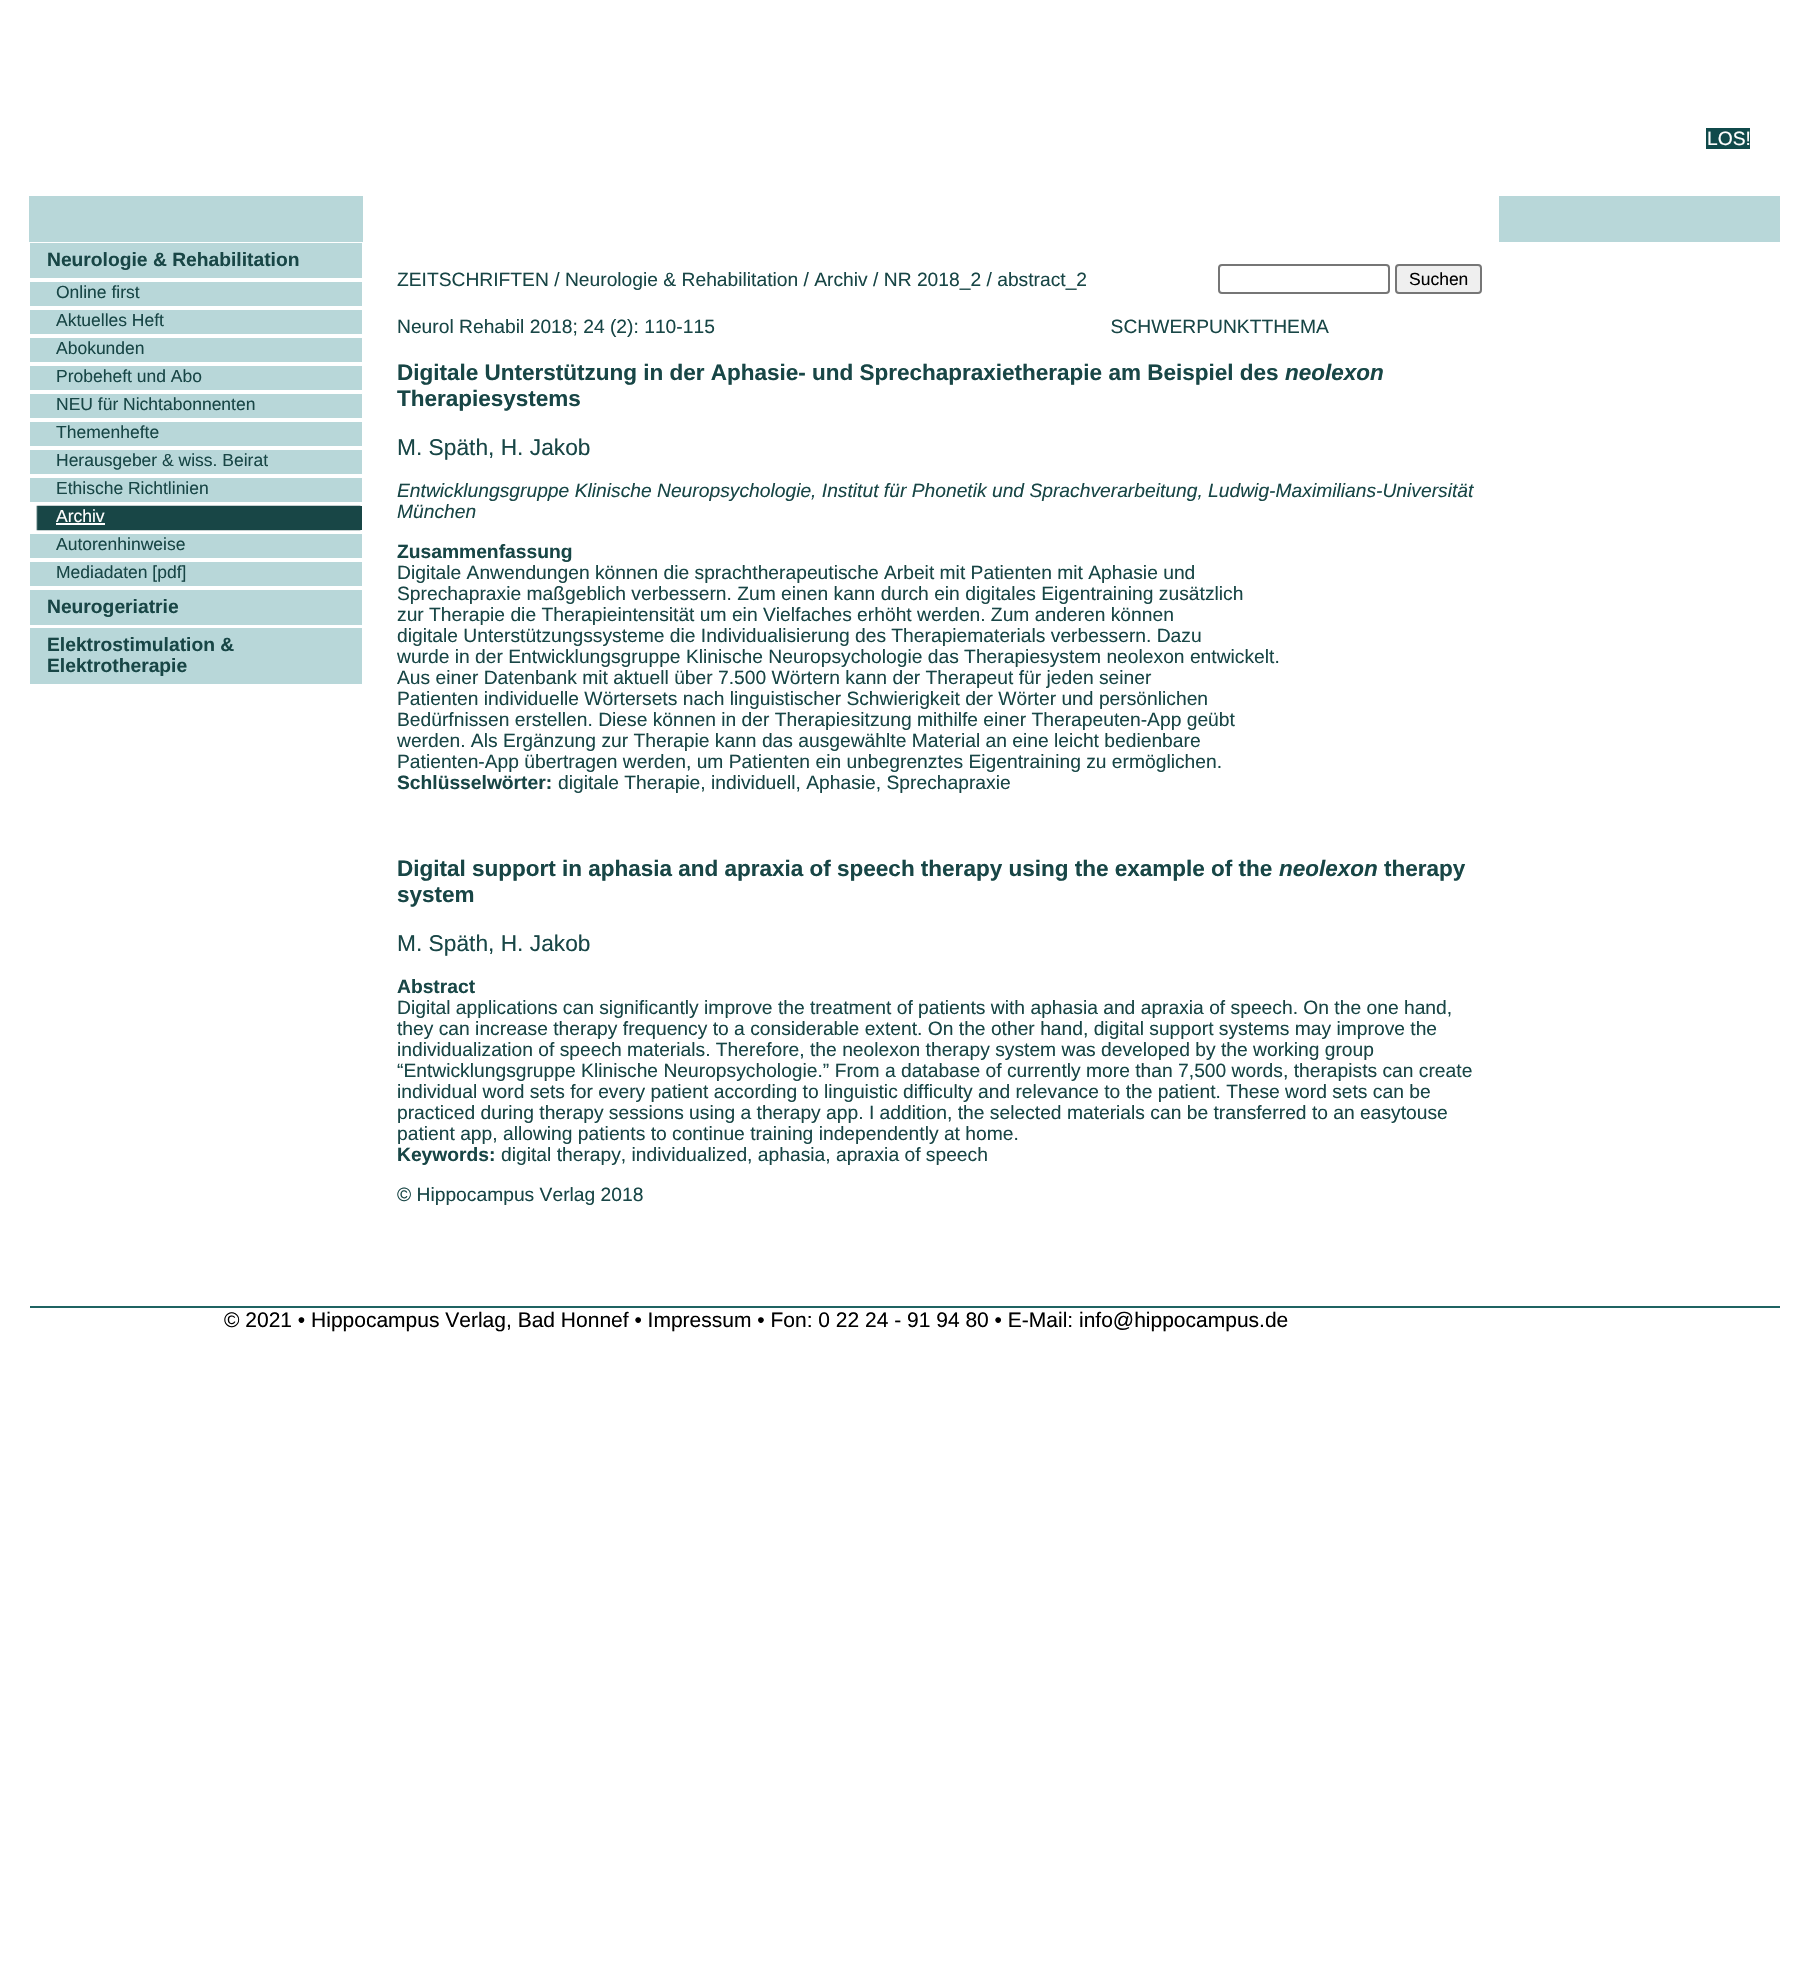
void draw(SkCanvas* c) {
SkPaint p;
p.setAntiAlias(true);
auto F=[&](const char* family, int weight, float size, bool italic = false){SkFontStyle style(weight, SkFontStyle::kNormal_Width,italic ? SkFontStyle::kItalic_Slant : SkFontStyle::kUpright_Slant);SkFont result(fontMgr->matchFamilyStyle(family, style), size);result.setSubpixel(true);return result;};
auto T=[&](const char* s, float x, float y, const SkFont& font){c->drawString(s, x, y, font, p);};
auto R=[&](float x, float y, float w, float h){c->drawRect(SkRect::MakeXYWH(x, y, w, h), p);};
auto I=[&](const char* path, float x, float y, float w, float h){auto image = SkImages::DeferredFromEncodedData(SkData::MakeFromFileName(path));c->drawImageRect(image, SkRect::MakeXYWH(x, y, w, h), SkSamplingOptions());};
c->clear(0xffffffff);
p.setColor(0xff104a4b);
R(1706,128,44,21);
auto f1 = F("Liberation Sans",400,19.25);
p.setColor(0xffffffff);
T("LOS!",1707,145,f1);
p.setColor(0xffb8d7d9);
R(1499,196,281,46);
R(29,196,334,46);
R(30,243,332,35);
auto f2 = F("Liberation Sans",700,19.25);
p.setColor(0xff184646);
T("Neurologie & Rehabilitation",47,266,f2);
p.setColor(0xffb8d7d9);
R(30,282,332,24);
auto f3 = F("Liberation Sans",400,17.5);
p.setColor(0xff184646);
T("Online first",56,298,f3);
p.setColor(0xffb8d7d9);
R(30,310,332,24);
p.setColor(0xff184646);
T("Aktuelles Heft",56,326,f3);
p.setColor(0xffb8d7d9);
R(30,338,332,24);
p.setColor(0xff184646);
T("Abokunden",56,354,f3);
p.setColor(0xffb8d7d9);
R(30,366,332,24);
p.setColor(0xff184646);
T("Probeheft und Abo",56,382,f3);
p.setColor(0xffb8d7d9);
R(30,394,332,24);
p.setColor(0xff184646);
T("NEU für Nichtabonnenten",56,410,f3);
p.setColor(0xffb8d7d9);
R(30,422,332,24);
p.setColor(0xff184646);
T("Themenhefte",56,438,f3);
p.setColor(0xffb8d7d9);
R(30,450,332,24);
p.setColor(0xff184646);
T("Herausgeber & wiss. Beirat",56,466,f3);
p.setColor(0xffb8d7d9);
R(30,478,332,24);
p.setColor(0xff184646);
T("Ethische Richtlinien",56,494,f3);
R(360,506,2,24);
I("1.png",30,505,331,26);
p.setColor(0xffffffff);
T("Archiv",56,522,f3);
R(56,523,49,2);
p.setColor(0xffb8d7d9);
R(30,534,332,24);
p.setColor(0xff184646);
T("Autorenhinweise",56,550,f3);
p.setColor(0xffb8d7d9);
R(30,562,332,24);
p.setColor(0xff184646);
T("Mediadaten [pdf]",56,578,f3);
p.setColor(0xffb8d7d9);
R(30,590,332,35);
p.setColor(0xff184646);
T("Neurogeriatrie",47,613,f2);
p.setColor(0xffb8d7d9);
R(30,628,332,56);
p.setColor(0xff184646);
T("Elektrostimulation &",47,651,f2);
T("Elektrotherapie",47,672,f2);
T("ZEITSCHRIFTEN / Neurologie & Rehabilitation / Archiv / NR 2018_2 / abstract_2",397,286,f1);
p.setStroke(true);
p.setStrokeWidth(2);
p.setColor(0xff767676);
c->drawRoundRect(SkRect::MakeXYWH(1219,265,170,28),3,3,p);
p.setStroke(false);
p.setColor(0xffefefef);
c->drawRoundRect(SkRect::MakeXYWH(1396,265,85,28),3,3,p);
p.setStroke(true);
p.setColor(0xff767676);
c->drawRoundRect(SkRect::MakeXYWH(1396,265,85,28),3,3,p);
p.setStroke(false);
p.setColor(0xff000000);
T("Suchen",1409,285,f3);
p.setColor(0xff184646);
T("Neurol Rehabil 2018; 24 (2): 110-115                                                                          SCHWERPUNKTTHEMA",397,333,f1);
auto f4 = F("Liberation Sans",700,22.5);
T("Digitale Unterstützung in der Aphasie- und Sprechapraxietherapie am Beispiel des",397,380,f4);
auto f5 = F("Liberation Sans",700,22.5,true);
T("neolexon",1285,380,f5);
T("Therapiesystems",397,406,f4);
auto f6 = F("Liberation Sans",400,22.75);
T("M. Späth, H. Jakob",397,455,f6);
auto f7 = F("Liberation Sans",400,19.25,true);
T("Entwicklungsgruppe Klinische Neuropsychologie, Institut für Phonetik und Sprachverarbeitung, Ludwig-Maximilians-Universität",397,497,f7);
T("München",397,518,f7);
T("Zusammenfassung",397,558,f2);
T("Digitale Anwendungen können die sprachtherapeutische Arbeit mit Patienten mit Aphasie und",397,579,f1);
T("Sprechapraxie maßgeblich verbessern. Zum einen kann durch ein digitales Eigentraining zusätzlich",397,600,f1);
T("zur Therapie die Therapieintensität um ein Vielfaches erhöht werden. Zum anderen können",397,621,f1);
T("digitale Unterstützungssysteme die Individualisierung des Therapiematerials verbessern. Dazu",397,642,f1);
T("wurde in der Entwicklungsgruppe Klinische Neuropsychologie das Therapiesystem neolexon entwickelt.",397,663,f1);
T("Aus einer Datenbank mit aktuell über 7.500 Wörtern kann der Therapeut für jeden seiner",397,684,f1);
T("Patienten individuelle Wörtersets nach linguistischer Schwierigkeit der Wörter und persönlichen",397,705,f1);
T("Bedürfnissen erstellen. Diese können in der Therapiesitzung mithilfe einer Therapeuten-App geübt",397,726,f1);
T("werden. Als Ergänzung zur Therapie kann das ausgewählte Material an eine leicht bedienbare",397,747,f1);
T("Patienten-App übertragen werden, um Patienten ein unbegrenztes Eigentraining zu ermöglichen.",397,768,f1);
T("Schlüsselwörter:",397,789,f2);
T("digitale Therapie, individuell, Aphasie, Sprechapraxie",558,789,f1);
T("Digital support in aphasia and apraxia of speech therapy using the example of the",397,876,f4);
T("neolexon",1279,876,f5);
T("therapy",1384,876,f4);
T("system",397,902,f4);
T("M. Späth, H. Jakob",397,951,f6);
T("Abstract",397,993,f2);
T("Digital applications can significantly improve the treatment of patients with aphasia and apraxia of speech. On the one hand,",397,1014,f1);
T("they can increase therapy frequency to a considerable extent. On the other hand, digital support systems may improve the",397,1035,f1);
T("individualization of speech materials. Therefore, the neolexon therapy system was developed by the working group",397,1056,f1);
T("“Entwicklungsgruppe Klinische Neuropsychologie.” From a database of currently more than 7,500 words, therapists can create",397,1077,f1);
T("individual word sets for every patient according to linguistic difficulty and relevance to the patient. These word sets can be",397,1098,f1);
T("practiced during therapy sessions using a therapy app. I addition, the selected materials can be transferred to an easytouse",397,1119,f1);
T("patient app, allowing patients to continue training independently at home.",397,1140,f1);
T("Keywords:",397,1161,f2);
T("digital therapy, individualized, aphasia, apraxia of speech",501,1161,f1);
T("© Hippocampus Verlag 2018",397,1201,f1);
p.setColor(0xff1f6362);
R(30,1306,1750,2);
auto f8 = F("Liberation Sans",400,21);
p.setColor(0xff000000);
T("© 2021 • Hippocampus Verlag, Bad Honnef • Impressum • Fon: 0 22 24 - 91 94 80 • E-Mail: info@hippocampus.de",224,1327,f8);
}
